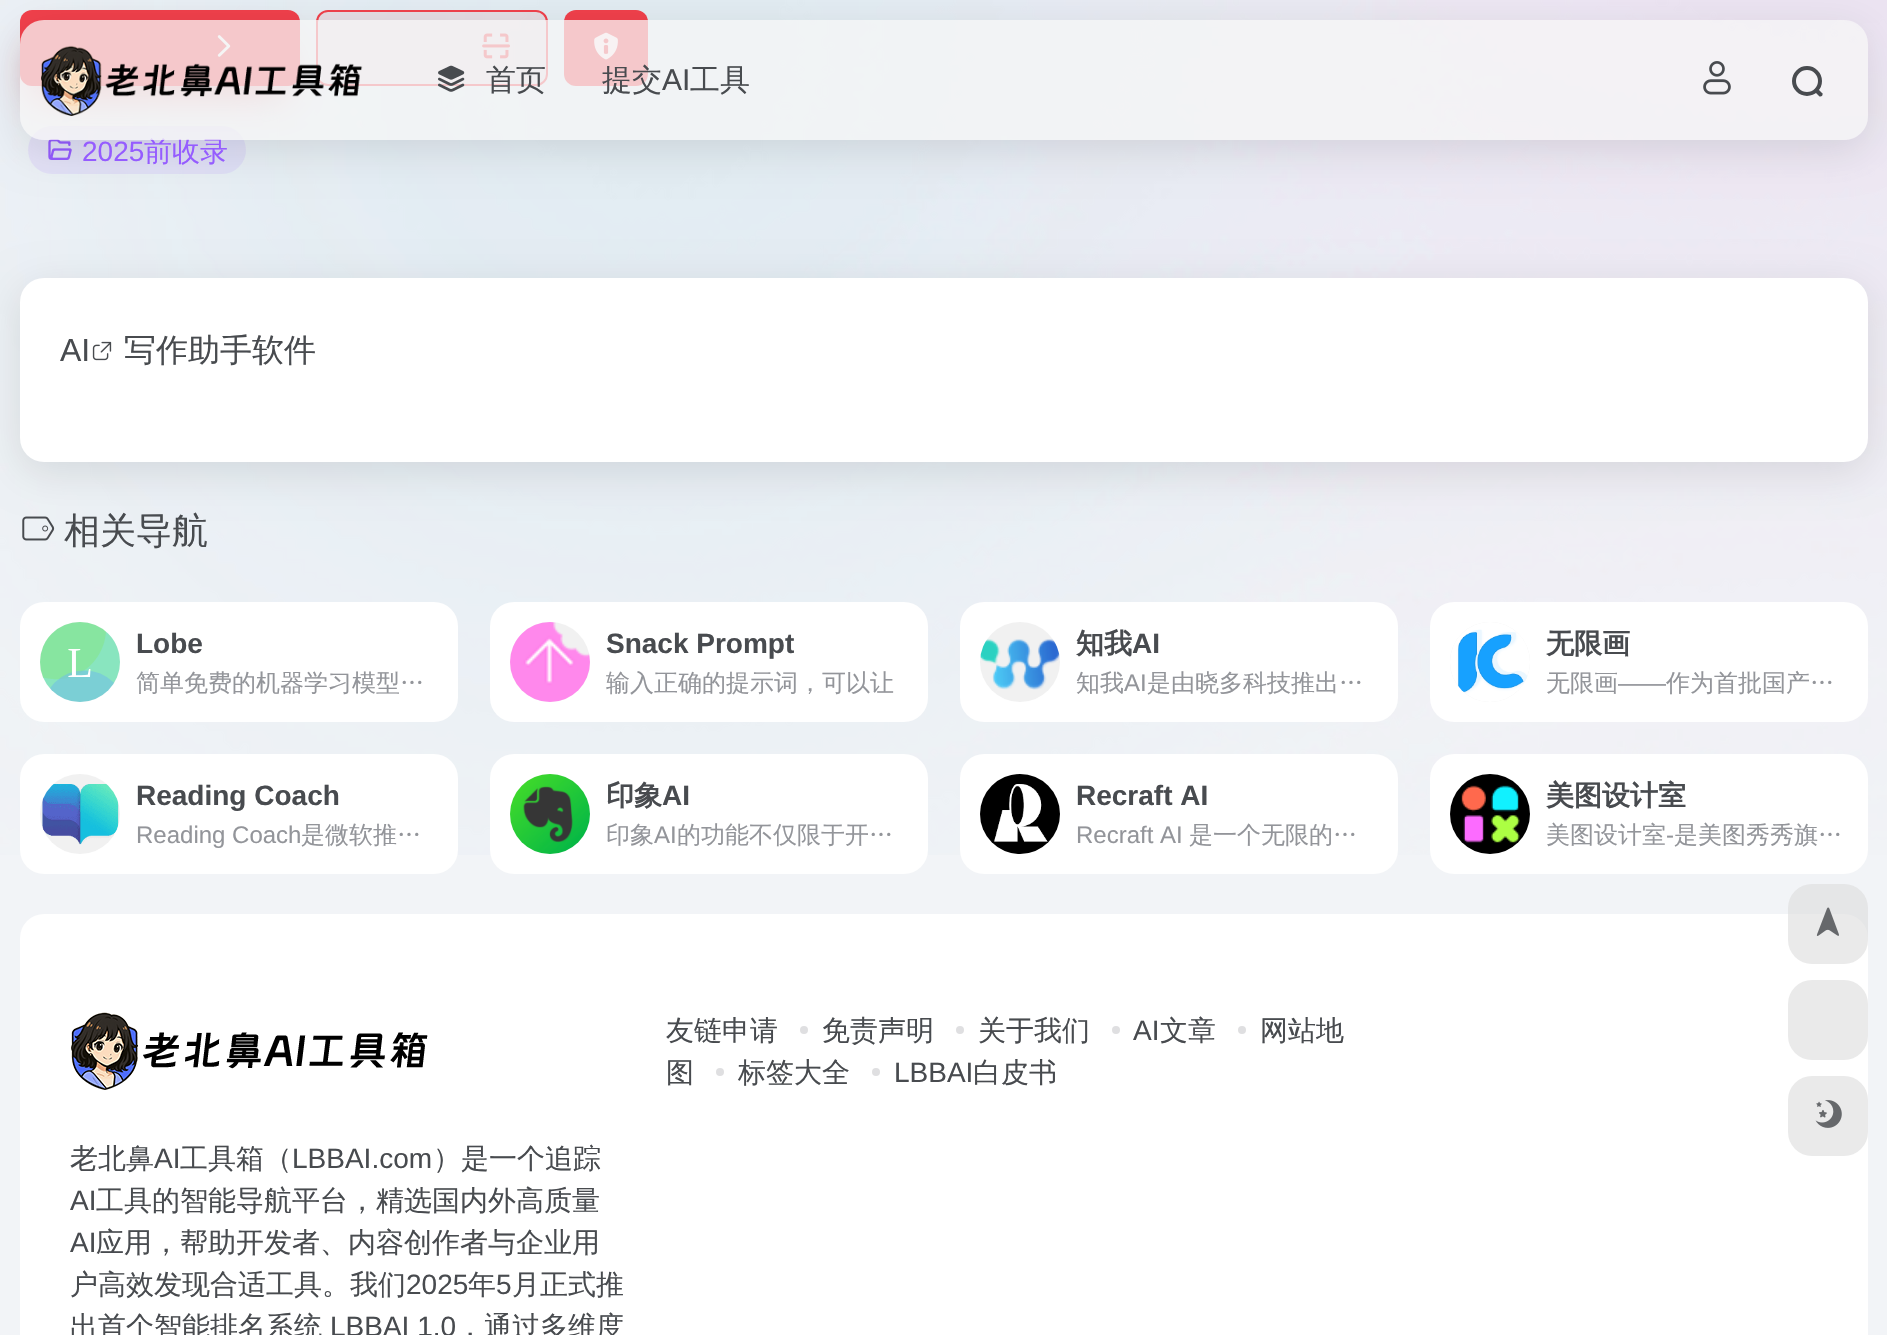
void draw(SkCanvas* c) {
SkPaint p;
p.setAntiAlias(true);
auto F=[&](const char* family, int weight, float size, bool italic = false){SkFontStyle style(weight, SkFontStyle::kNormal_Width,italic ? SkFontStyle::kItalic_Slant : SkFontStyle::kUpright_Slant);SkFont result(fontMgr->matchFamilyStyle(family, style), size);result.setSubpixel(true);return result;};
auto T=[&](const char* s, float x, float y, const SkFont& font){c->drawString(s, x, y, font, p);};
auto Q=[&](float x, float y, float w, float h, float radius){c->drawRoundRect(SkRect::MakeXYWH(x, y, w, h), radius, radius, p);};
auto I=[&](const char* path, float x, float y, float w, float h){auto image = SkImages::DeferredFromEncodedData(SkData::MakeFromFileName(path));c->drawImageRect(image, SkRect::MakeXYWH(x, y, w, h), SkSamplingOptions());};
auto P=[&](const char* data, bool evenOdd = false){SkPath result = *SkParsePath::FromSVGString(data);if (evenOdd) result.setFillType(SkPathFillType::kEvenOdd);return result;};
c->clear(0xfff2f4f7);
I("1.png",0,0,1887,855);
p.setColor(0x99dc414b);
p.setMaskFilter(SkMaskFilter::MakeBlur(kNormal_SkBlurStyle, 20));
c->drawRect(SkRect::MakeXYWH(36,50,248,44),p);
p.setMaskFilter(nullptr);
p.setColor(0xfff1404b);
Q(20,10,280,76,12);
I("5.png",217,35,14,22);
p.setColor(0x1af1404b);
c->drawRoundRect(SkRect::MakeXYWH(317,11,230,74),11,11,p);
p.setStroke(true);
p.setStrokeWidth(2);
p.setColor(0xfff1404b);
c->drawRoundRect(SkRect::MakeXYWH(317,11,230,74),11,11,p);
I("6.png",482,33,28,26);
p.setStroke(false);
Q(564,10,84,76,12);
I("7.png",594,32,24,28);
p.setColor(0x1a955cff);
Q(28,126,218,48,24);
I("8.png",48,139,24,21);
c->save();
c->clipPath(P("M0 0h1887v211h-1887zm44 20h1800c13.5 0 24 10.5 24 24v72c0 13.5-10.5 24-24 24h-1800c-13.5 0-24-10.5-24-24v-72c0-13.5 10.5-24 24-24z",true),true);
p.setColor(0x1a000000);
p.setMaskFilter(SkMaskFilter::MakeBlur(kNormal_SkBlurStyle, 20));
c->drawRoundRect(SkRect::MakeXYWH(20,30,1848,120),24,24,p);
p.setMaskFilter(nullptr);
c->restore();
auto f1 = F("WenQuanYi Zen Hei",500,28);
p.setColor(0xff955cff);
T("前收录",144,161,f1);
p.setColor(0xbff5f5f5);
Q(20,20,1848,120,24);
I("2.png",41,45,322,71);
I("3.png",438,65,27,27);
auto f2 = F("WenQuanYi Zen Hei",500,30);
p.setColor(0xff484b4f);
T("首页",486,90,f2);
T("提交",602,90,f2);
auto f3 = F("Liberation Sans",400,30);
T("AI",662,90,f3);
T("工具",690,90,f2);
I("4.png",1703,61,28,34);
p.setStroke(true);
p.setStrokeWidth(4);
c->drawCircle(1807,81,13,p);
p.setStroke(false);
c->drawPath(P("M1819 90l3.5 3.5c.5 2-1 3.5-3 3l-4-4c-.5-2 2-4 3.5-2.5z"),p);
auto f4 = F("Liberation Sans",400,28);
p.setColor(0xff955cff);
T("2025",82,161,f4);
I("10.png",22,516,33,25);
p.setColor(0x1a000000);
p.setMaskFilter(SkMaskFilter::MakeBlur(kNormal_SkBlurStyle, 20));
c->drawRoundRect(SkRect::MakeXYWH(20,288,1848,184),24,24,p);
p.setMaskFilter(nullptr);
p.setColor(0xffffffff);
Q(20,278,1848,184,24);
auto f5 = F("Liberation Sans",400,32);
p.setColor(0xff484b4f);
T("AI",60,361,f5);
I("9.png",92,341,20,20);
auto f6 = F("WenQuanYi Zen Hei",500,32);
T("写作助手软件",124,361,f6);
auto f7 = F("WenQuanYi Zen Hei",500,36);
T("相关导航",64,543,f7);
p.setColor(0xffffffff);
Q(20,602,438,120,24);
p.setColor(0xfff1f1f1);
c->drawCircle(80,662,40,p);
I("11.png",40,622,80,80);
auto f8 = F("Liberation Sans",700,28);
p.setColor(0xff484b4f);
T("Lobe",136,653,f8);
auto f9 = F("WenQuanYi Zen Hei",500,24);
p.setColor(0xff93959a);
T("简单免费的机器学习模型…",136,691,f9);
p.setColor(0xffffffff);
Q(490,602,438,120,24);
p.setColor(0xfff1f1f1);
c->drawCircle(550,662,40,p);
I("12.png",510,622,80,80);
p.setColor(0xff484b4f);
T("Snack Prompt",606,653,f8);
p.setColor(0xff93959a);
T("输入正确的提示词，可以让",606,691,f9);
p.setColor(0xffffffff);
Q(960,602,438,120,24);
p.setColor(0xfff1f1f1);
c->drawCircle(1020,662,40,p);
I("13.png",980,639,80,51);
auto f10 = F("WenQuanYi Zen Hei",700,28);
p.setColor(0xff484b4f);
T("知我",1076,653,f10);
T("AI",1132,653,f8);
p.setColor(0xff93959a);
T("知我",1076,691,f9);
auto f11 = F("Liberation Sans",400,24);
T("AI",1124,691,f11);
T("是由晓多科技推出…",1147,691,f9);
p.setColor(0xffffffff);
Q(1430,602,438,120,24);
p.setColor(0xfff1f1f1);
c->drawCircle(1490,662,40,p);
I("14.png",1450,622,80,80);
p.setColor(0xff484b4f);
T("无限画",1546,653,f10);
p.setColor(0xff93959a);
T("无限画",1546,691,f9);
T("——",1618,691,f11);
T("作为首批国产…",1666,691,f9);
p.setColor(0xffffffff);
Q(20,754,438,120,24);
p.setColor(0xfff1f1f1);
c->drawCircle(80,814,40,p);
I("15.png",42,784,77,61);
p.setColor(0xff484b4f);
T("Reading Coach",136,805,f8);
p.setColor(0xff93959a);
T("Reading Coach",136,843,f11);
T("是微软推…",301,843,f9);
p.setColor(0xffffffff);
Q(490,754,438,120,24);
p.setColor(0xfff1f1f1);
c->drawCircle(550,814,40,p);
I("16.png",510,774,80,80);
p.setColor(0xff484b4f);
T("印象",606,805,f10);
T("AI",662,805,f8);
p.setColor(0xff93959a);
T("印象",606,843,f9);
T("AI",654,843,f11);
T("的功能不仅限于开…",677,843,f9);
p.setColor(0xffffffff);
Q(960,754,438,120,24);
p.setColor(0xfff1f1f1);
c->drawCircle(1020,814,40,p);
I("17.png",980,774,80,80);
p.setColor(0xff484b4f);
T("Recraft AI",1076,805,f8);
p.setColor(0xff93959a);
T("Recraft AI",1076,843,f11);
T("是一个无限的…",1189,843,f9);
p.setColor(0xffffffff);
Q(1430,754,438,120,24);
p.setColor(0xfff1f1f1);
c->drawCircle(1490,814,40,p);
I("18.png",1450,774,80,80);
p.setColor(0xff484b4f);
T("美图设计室",1546,805,f10);
p.setColor(0xff93959a);
T("美图设计室",1546,843,f9);
T("-",1666,843,f11);
T("是美图秀秀旗…",1674,843,f9);
p.setColor(0xffffffff);
Q(20,914,1848,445,24);
p.setColor(0xff484b4f);
T("友链申请",666,1040,f1);
p.setColor(0xffdfdfe1);
c->drawCircle(804,1030,4,p);
p.setColor(0xff484b4f);
T("免责声明",822,1040,f1);
p.setColor(0xffdfdfe1);
c->drawCircle(960,1030,4,p);
p.setColor(0xff484b4f);
T("关于我们",978,1040,f1);
p.setColor(0xffdfdfe1);
c->drawCircle(1116,1030,4,p);
p.setColor(0xff484b4f);
T("AI",1133,1040,f4);
T("文章",1160,1040,f1);
p.setColor(0xffdfdfe1);
c->drawCircle(1242,1030,4,p);
p.setColor(0xff484b4f);
T("网站地",1260,1040,f1);
T("图",666,1082,f1);
p.setColor(0xffdfdfe1);
c->drawCircle(720,1072,4,p);
p.setColor(0xff484b4f);
T("标签大全",738,1082,f1);
p.setColor(0xffdfdfe1);
c->drawCircle(876,1072,4,p);
p.setColor(0xff484b4f);
T("LBBAI",894,1082,f4);
T("白皮书",973,1082,f1);
I("19.png",71,1012,357,78);
T("老北鼻",70,1168,f1);
T("AI",154,1168,f4);
T("工具箱（",180,1168,f1);
T("LBBAI.com",292,1168,f4);
T("）是一个追踪",433,1168,f1);
T("AI",70,1210,f4);
T("工具的智能导航平台，精选国内外高质量",96,1210,f1);
T("AI",70,1252,f4);
T("应用，帮助开发者、内容创作者与企业用",96,1252,f1);
T("户高效发现合适工具。我们",70,1294,f1);
T("2025",406,1294,f4);
T("年",468,1294,f1);
T("5",496,1294,f4);
T("月正式推",512,1294,f1);
T("出首个智能排名系统",70,1336,f1);
T("LBBAI 1.0",330,1336,f4);
T("，通过多维度",456,1336,f1);
p.setColor(0x99dcdcdc);
Q(1788,884,80,80,24);
I("20.png",1816,907,23,29);
p.setColor(0xffeaeaea);
Q(1788,980,80,80,24);
Q(1788,1076,80,80,24);
I("21.png",1815,1100,27,28);
}
